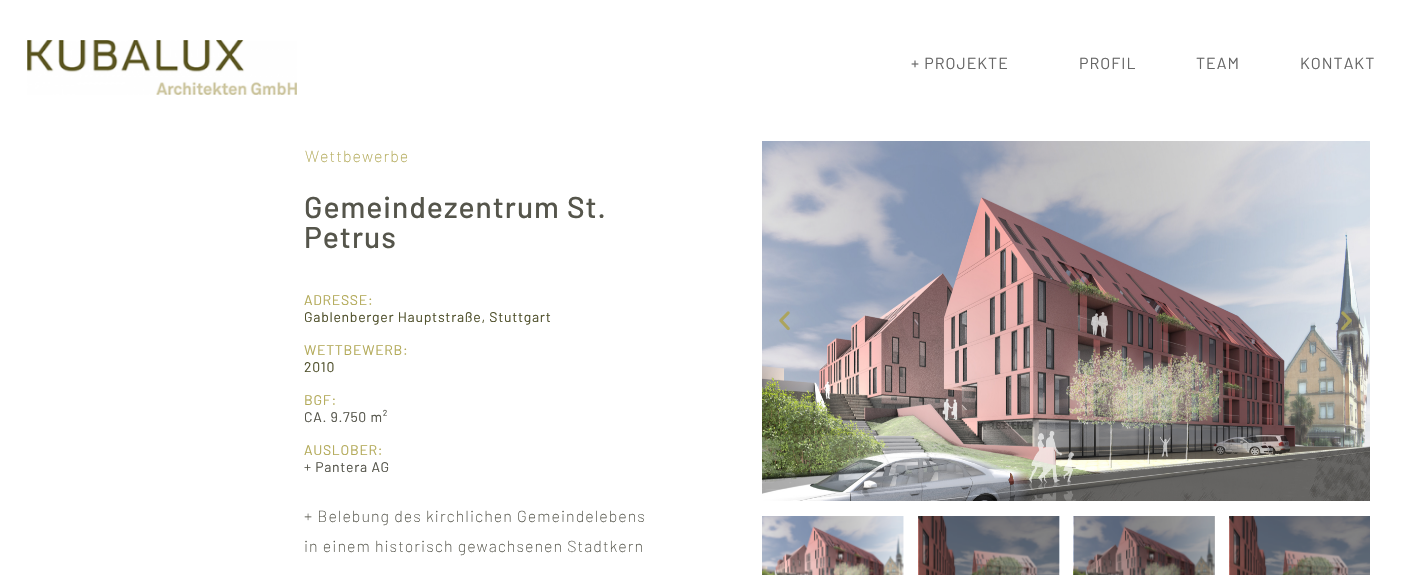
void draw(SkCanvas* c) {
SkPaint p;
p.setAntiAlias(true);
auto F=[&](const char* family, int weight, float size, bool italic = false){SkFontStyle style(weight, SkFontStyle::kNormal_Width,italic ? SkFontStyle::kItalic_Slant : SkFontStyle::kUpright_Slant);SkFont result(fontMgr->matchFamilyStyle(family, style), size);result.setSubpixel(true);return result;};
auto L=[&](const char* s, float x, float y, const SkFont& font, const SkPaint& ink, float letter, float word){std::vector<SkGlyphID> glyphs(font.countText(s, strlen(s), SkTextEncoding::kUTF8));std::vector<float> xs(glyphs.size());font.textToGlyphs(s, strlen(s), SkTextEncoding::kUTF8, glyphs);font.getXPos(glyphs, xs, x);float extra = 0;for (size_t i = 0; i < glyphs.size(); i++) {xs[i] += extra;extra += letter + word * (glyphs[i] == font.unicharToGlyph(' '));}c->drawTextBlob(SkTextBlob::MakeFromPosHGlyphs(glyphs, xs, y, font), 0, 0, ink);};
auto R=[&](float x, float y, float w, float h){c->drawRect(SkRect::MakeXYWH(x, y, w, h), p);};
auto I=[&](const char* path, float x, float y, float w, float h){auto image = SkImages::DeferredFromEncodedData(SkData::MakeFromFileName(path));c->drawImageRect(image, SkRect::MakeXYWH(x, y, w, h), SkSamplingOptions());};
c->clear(0xffffffff);
p.setColor(0xffb3b3b3);
R(1214,516,1,59);
I("1.png",27,40,270,55);
auto f1 = F("Barlow",400,16);
p.setColor(0xff666666);
L("+ PROJEKTE",911,69,f1,p,1,0);
L("PROFIL",1079,69,f1,p,1,0);
L("TEAM",1196,69,f1,p,1,0);
L("KONTAKT",1300,69,f1,p,1,0);
auto f2 = F("Barlow",200,16);
p.setColor(0xffb3aa59);
L("Wettbewerbe",305,162,f2,p,1,0);
auto f3 = F("Barlow",500,30);
p.setColor(0xff55554b);
L("Gemeindezentrum St.",304,218,f3,p,1,0);
L("Petrus",304,248,f3,p,1,0);
auto f4 = F("Barlow",400,14);
p.setColor(0xffb3aa59);
L("ADRESSE:",304,305,f4,p,.7,0);
p.setColor(0xff4f502b);
L("Gablenberger Hauptstraße, Stuttgart",304,322,f4,p,.7,0);
p.setColor(0xffb3aa59);
L("WETTBEWERB:",304,355,f4,p,.7,0);
p.setColor(0xff4f502b);
L("2010",304,372,f4,p,.7,0);
p.setColor(0xffb3aa59);
L("BGF:",304,405,f4,p,.7,0);
p.setColor(0xff55554b);
L("CA. 9.750 m²",304,422,f4,p,.7,0);
p.setColor(0xffb3aa59);
L("AUSLOBER:",304,455,f4,p,.7,0);
p.setColor(0xff55554b);
L("+ Pantera AG",304,472,f4,p,.7,0);
L("+ Belebung des kirchlichen Gemeindelebens",304,522,f2,p,1,0);
L("in einem historisch gewachsenen Stadtkern",304,552,f2,p,1,0);
I("2.png",762,141,608,360);
I("3.png",779,311,11,20);
I("4.png",1341,311,11,20);
I("5.png",762,516,142,59);
I("6.png",918,516,142,59);
I("7.png",1073,516,142,59);
I("8.png",1229,516,141,59);
}
